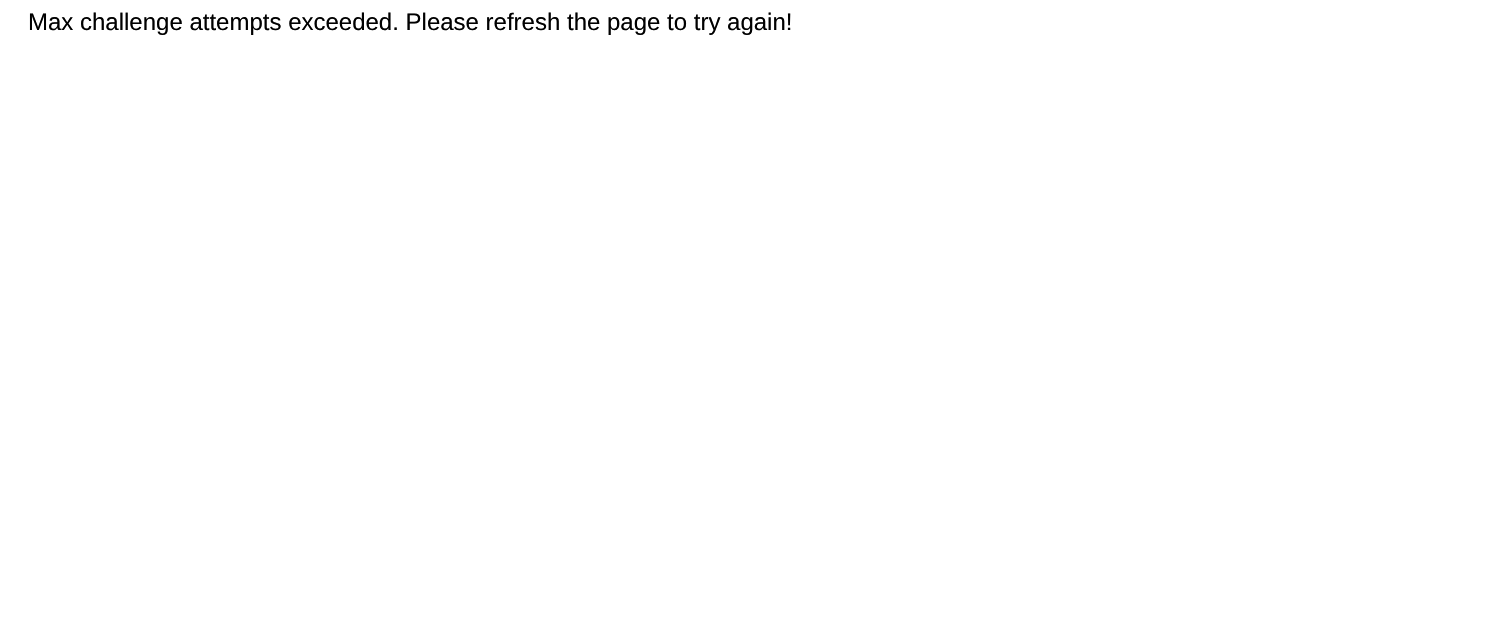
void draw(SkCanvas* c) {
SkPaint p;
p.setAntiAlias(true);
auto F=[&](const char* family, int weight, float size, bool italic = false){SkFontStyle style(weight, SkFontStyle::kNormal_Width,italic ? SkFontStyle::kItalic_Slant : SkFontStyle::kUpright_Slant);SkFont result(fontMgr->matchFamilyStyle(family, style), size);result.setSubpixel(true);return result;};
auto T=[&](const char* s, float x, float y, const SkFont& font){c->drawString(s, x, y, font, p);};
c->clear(0xffffffff);
auto f1 = F("Liberation Sans",400,24);
p.setColor(0xff000000);
T("Max challenge attempts exceeded. Please refresh the page to try again!",28,30,f1);
}
